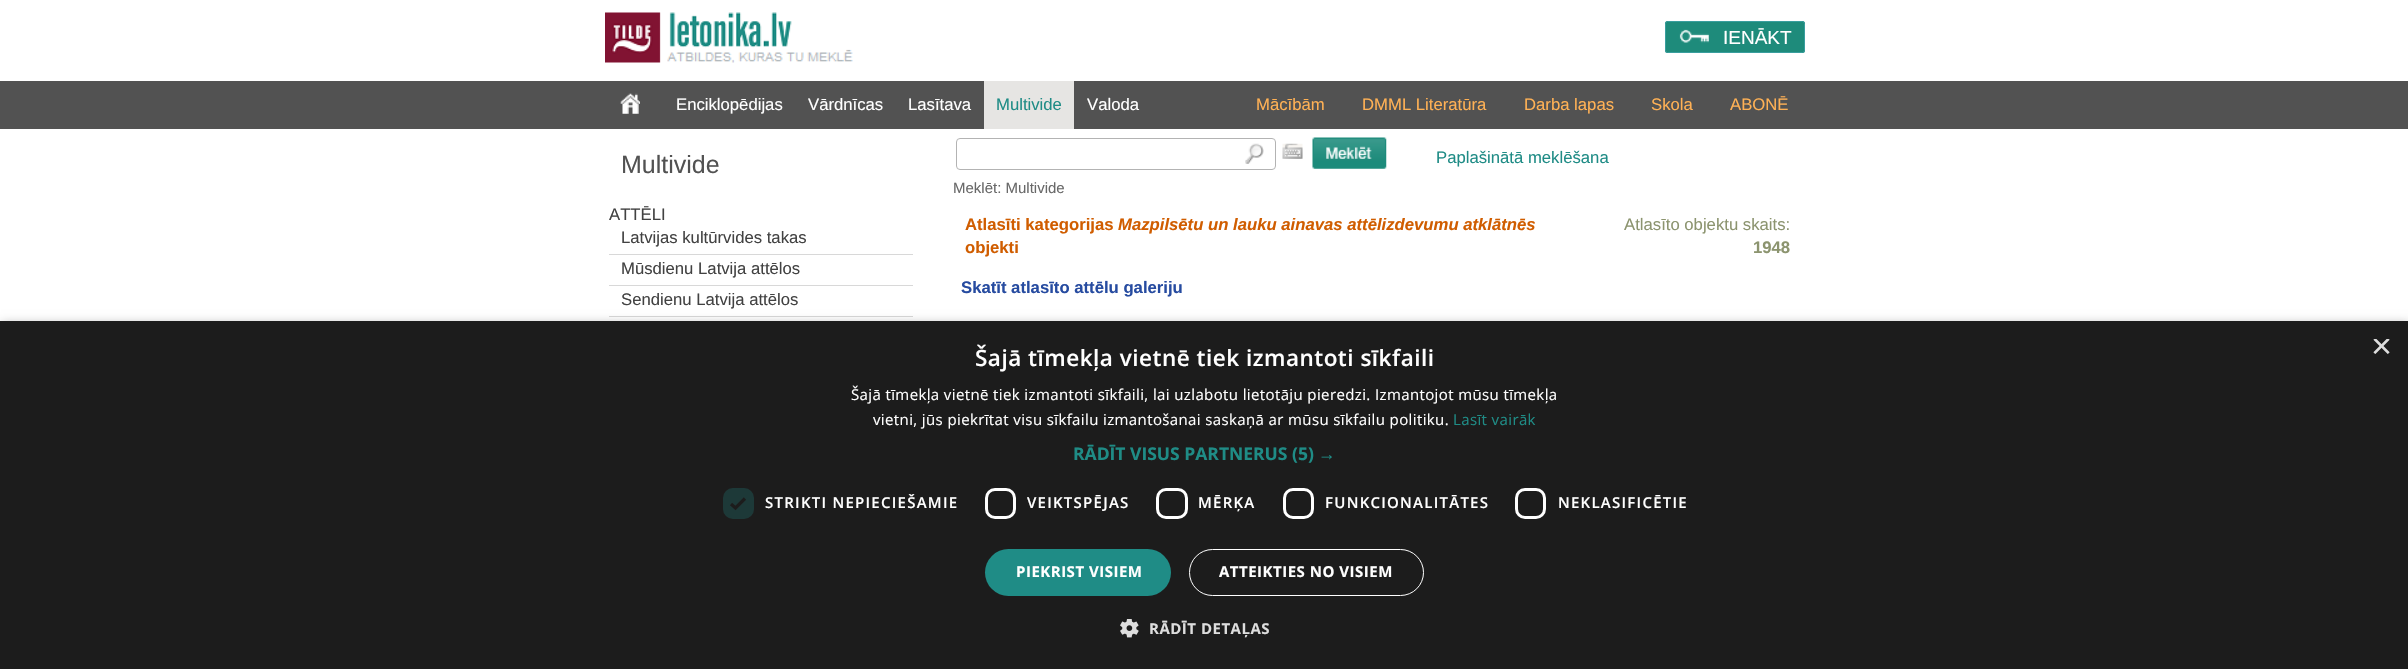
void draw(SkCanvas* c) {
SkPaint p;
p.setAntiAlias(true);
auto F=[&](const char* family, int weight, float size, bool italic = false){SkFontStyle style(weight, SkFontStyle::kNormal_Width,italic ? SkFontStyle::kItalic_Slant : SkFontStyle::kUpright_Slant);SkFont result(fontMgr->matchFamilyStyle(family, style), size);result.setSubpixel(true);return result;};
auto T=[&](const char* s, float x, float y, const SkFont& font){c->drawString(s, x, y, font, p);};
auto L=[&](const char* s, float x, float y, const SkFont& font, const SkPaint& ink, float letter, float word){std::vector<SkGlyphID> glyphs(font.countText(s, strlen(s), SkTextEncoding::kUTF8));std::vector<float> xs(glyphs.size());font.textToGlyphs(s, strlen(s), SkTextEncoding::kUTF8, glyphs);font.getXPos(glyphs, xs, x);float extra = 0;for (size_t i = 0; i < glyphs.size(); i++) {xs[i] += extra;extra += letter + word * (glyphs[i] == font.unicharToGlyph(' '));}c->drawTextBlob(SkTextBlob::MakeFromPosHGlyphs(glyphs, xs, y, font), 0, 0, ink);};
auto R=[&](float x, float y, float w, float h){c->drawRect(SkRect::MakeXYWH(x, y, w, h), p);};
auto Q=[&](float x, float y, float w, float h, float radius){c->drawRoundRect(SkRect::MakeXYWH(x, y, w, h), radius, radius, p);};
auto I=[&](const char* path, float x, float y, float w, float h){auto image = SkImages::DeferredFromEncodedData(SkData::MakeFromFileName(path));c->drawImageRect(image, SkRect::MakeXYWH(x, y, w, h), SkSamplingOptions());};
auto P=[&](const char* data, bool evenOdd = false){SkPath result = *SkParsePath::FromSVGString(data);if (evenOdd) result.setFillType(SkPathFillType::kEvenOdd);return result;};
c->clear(0xffffffff);
I("1.png",605,12,248,51);
p.setColor(0xff1e8b7b);
Q(1665,21,140,32,2.5);
I("2.png",1679,29,30,14);
p.setStroke(true);
p.setStrokeWidth(1);
p.setColor(0xff399e9e);
c->drawRoundRect(SkRect::MakeXYWH(1665.5,21.5,139,31),2,2,p);
auto f1 = F("Liberation Sans",400,19);
p.setStroke(false);
p.setColor(0xffffffff);
T("IENĀKT",1723,44,f1);
p.setColor(0xff525252);
R(0,81,2408,48);
I("3.png",620,93,20,21);
auto f2 = F("Liberation Sans",400,16.7);
p.setColor(0xffffffff);
T("Enciklopēdijas",676,110,f2);
T("Vārdnīcas",808,110,f2);
T("Lasītava",908,110,f2);
p.setColor(0xffe6e5e3);
R(984,81,90,48);
p.setColor(0xff1f8c86);
T("Multivide",996,110,f2);
p.setColor(0xffffffff);
T("Valoda",1087,110,f2);
p.setColor(0xffffb155);
T("Mācībām",1256,110,f2);
T("DMML Literatūra",1362,110,f2);
T("Darba lapas",1524,110,f2);
T("Skola",1651,110,f2);
T("ABONĒ",1730,110,f2);
auto f3 = F("Liberation Sans",400,25);
p.setColor(0xff525252);
T("Multivide",621,173,f3);
p.setColor(0xff424242);
T("ATTĒLI",609,220,f2);
T("Latvijas kultūrvides takas",621,243,f2);
p.setColor(0xffd8d8d8);
R(609,254,304,1);
p.setColor(0xff424242);
T("Mūsdienu Latvija attēlos",621,274,f2);
p.setColor(0xffd8d8d8);
R(609,285,304,1);
p.setColor(0xff424242);
T("Sendienu Latvija attēlos",621,305,f2);
p.setColor(0xffd8d8d8);
R(609,316,304,1);
I("4.png",1245,143,19,21);
p.setStroke(true);
p.setColor(0xffb3b3b3);
c->drawRoundRect(SkRect::MakeXYWH(956.5,138.5,319,31),3.5,3.5,p);
I("5.png",1282,143,21,16);
I("6.png",1312,137,75,32);
p.setStroke(false);
p.setColor(0xff1f8c86);
T("Paplašinātā meklēšana",1436,163,f2);
auto f4 = F("Liberation Sans",400,15);
p.setColor(0xff696969);
T("Meklēt: Multivide",953,193,f4);
auto f5 = F("Liberation Sans",700,16.7);
p.setColor(0xffd05d00);
T("Atlasīti kategorijas",965,230,f5);
auto f6 = F("Liberation Sans",700,16.7,true);
T("Mazpilsētu un lauku ainavas attēlizdevumu atklātnēs",1118,230,f6);
T("objekti",965,253,f5);
p.setColor(0xff8c946f);
T("Atlasīto objektu skaits:",1624,230,f2);
T("1948",1753,253,f5);
p.setColor(0xff264ba0);
T("Skatīt atlasīto attēlu galeriju",961,293,f5);
p.setColor(0x59000000);
p.setMaskFilter(SkMaskFilter::MakeBlur(kNormal_SkBlurStyle, 5));
c->drawRect(SkRect::MakeXYWH(1,324,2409,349),p);
p.setMaskFilter(nullptr);
p.setColor(0xff1c1c1c);
R(0,321,2408,348);
auto f7 = F("Open Sans",600,22.5);
p.setColor(0xffffffff);
L("Šajā tīmekļa vietnē tiek izmantoti sīkfaili",975,366,f7,p,.5,0);
c->save();
c->clipRect(SkRect::MakeXYWH(2371,339,19,19));
auto f8 = F("Liberation Sans",400,36);
p.setColor(0xffdddddd);
T("×",2371,358,f8);
c->restore();
auto f9 = F("Open Sans",400,15);
p.setColor(0xffffffff);
L("Šajā tīmekļa vietnē tiek izmantoti sīkfaili, lai uzlabotu lietotāju pieredzi. Izmantojot mūsu tīmekļa",851,400,f9,p,.38,0);
L("vietni, jūs piekrītat visu sīkfailu izmantošanai saskaņā ar mūsu sīkfailu politiku.",873,425,f9,p,.38,0);
p.setColor(0xff1f8c86);
L("Lasīt vairāk",1453,425,f9,p,.38,0);
auto f10 = F("Open Sans",700,17.5);
T("RĀDĪT VISUS PARTNERUS (5)",1073,460,f10);
auto f11 = F("Liberation Sans",700,17.5);
T("→",1318,460,f11);
p.setColor(0xff1d3938);
Q(723,488,31,31,10);
p.setStroke(true);
p.setStrokeWidth(3.3);
p.setColor(0xff1c1c1c);
c->drawPath(P("M731 504l4.5 4l9.5-9.5"),p);
auto f12 = F("Open Sans",600,15);
p.setStroke(false);
p.setColor(0xffffffff);
L("STRIKTI NEPIECIEŠAMIE",765,508,f12,p,1.25,0);
p.setStroke(true);
p.setStrokeWidth(3);
c->drawRoundRect(SkRect::MakeXYWH(986.5,489.5,28,28),8.5,8.5,p);
p.setStroke(false);
L("VEIKTSPĒJAS",1027,508,f12,p,1.25,0);
p.setStroke(true);
c->drawRoundRect(SkRect::MakeXYWH(1157.5,489.5,29,28),8.5,8.5,p);
p.setStroke(false);
L("MĒRĶA",1198,508,f12,p,1.25,0);
p.setStroke(true);
c->drawRoundRect(SkRect::MakeXYWH(1284.5,489.5,28,28),8.5,8.5,p);
p.setStroke(false);
L("FUNKCIONALITĀTES",1325,508,f12,p,1.25,0);
p.setStroke(true);
c->drawRoundRect(SkRect::MakeXYWH(1516.5,489.5,28,28),8.5,8.5,p);
p.setStroke(false);
L("NEKLASIFICĒTIE",1558,508,f12,p,1.25,0);
p.setColor(0xff1f8c86);
Q(985,549,186,47,23.5);
auto f13 = F("Open Sans",700,15);
p.setColor(0xffffffff);
L("PIEKRIST VISIEM",1016,577,f13,p,.5,0);
p.setStroke(true);
p.setStrokeWidth(1);
c->drawRoundRect(SkRect::MakeXYWH(1189.5,549.5,234,46),23,23,p);
p.setStroke(false);
L("ATTEIKTIES NO VISIEM",1219,577,f13,p,.5,0);
I("7.png",1120,619,19,19);
p.setColor(0xffdddddd);
L("RĀDĪT DETAĻAS",1149,634,f13,p,.5,0);
}
